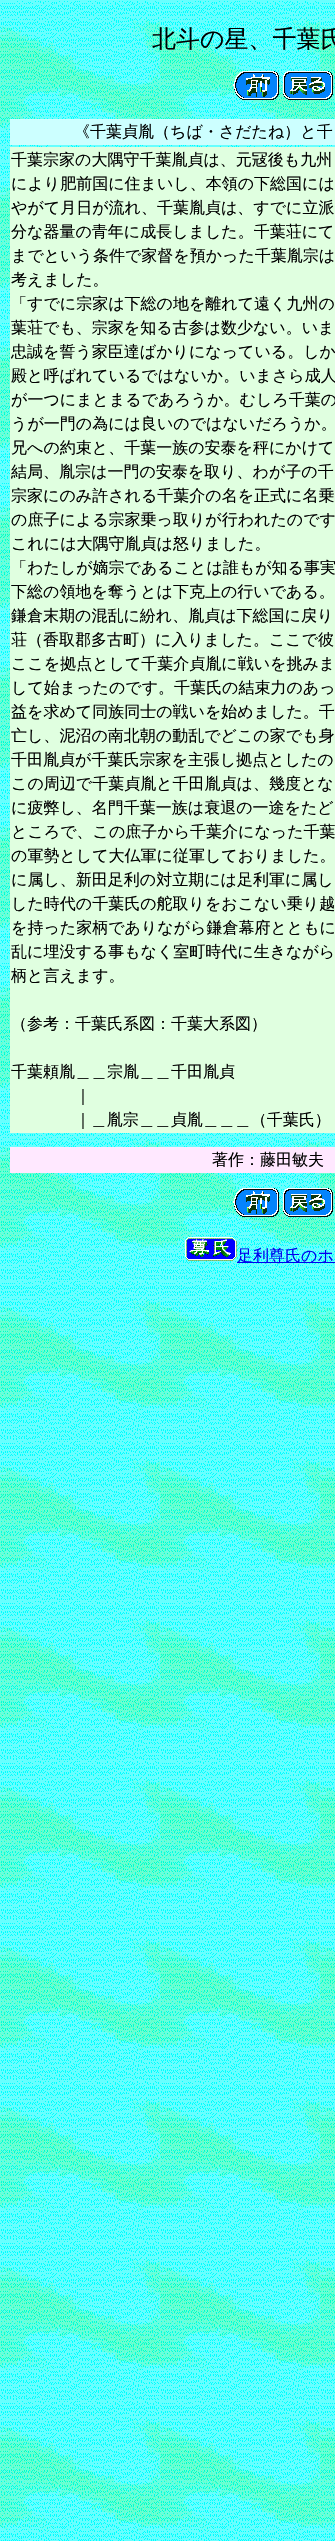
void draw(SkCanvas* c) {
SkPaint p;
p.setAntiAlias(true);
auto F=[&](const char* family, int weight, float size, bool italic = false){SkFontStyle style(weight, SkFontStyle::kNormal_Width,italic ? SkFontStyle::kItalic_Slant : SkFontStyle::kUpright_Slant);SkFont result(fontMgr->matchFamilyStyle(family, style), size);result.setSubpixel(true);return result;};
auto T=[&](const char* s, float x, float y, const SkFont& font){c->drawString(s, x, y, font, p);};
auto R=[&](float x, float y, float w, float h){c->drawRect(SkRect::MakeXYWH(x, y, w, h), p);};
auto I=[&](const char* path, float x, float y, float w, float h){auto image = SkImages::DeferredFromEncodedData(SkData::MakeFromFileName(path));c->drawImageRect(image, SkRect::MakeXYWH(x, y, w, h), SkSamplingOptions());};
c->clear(0xffffffff);
I("1.png",0,0,335,2541);
auto f1 = F("WenQuanYi Zen Hei",500,24);
p.setColor(0xff000000);
T("北斗の星、千葉氏",152,47,f1);
I("2.png",233,71,46,29);
I("3.png",283,71,50,29);
p.setColor(0xffccffff);
R(10,119,325,26);
auto f2 = F("WenQuanYi Zen Hei",500,16);
p.setColor(0xff000000);
T("《千葉貞胤（ちば・さだたね）と千",74,137,f2);
p.setColor(0xffe0ffe0);
R(10,147,325,986);
p.setColor(0xff000000);
T("千葉宗家の大隅守千葉胤貞は、元冦後も九州",11,165,f2);
T("により肥前国に住まいし、本領の下総国には",11,189,f2);
T("やがて月日が流れ、千葉胤貞は、すでに立派",11,213,f2);
T("分な器量の青年に成長しました。千葉荘にて",11,237,f2);
T("までという条件で家督を預かった千葉胤宗は",11,261,f2);
T("考えました。",11,285,f2);
T("「すでに宗家は下総の地を離れて遠く九州の",11,309,f2);
T("葉荘でも、宗家を知る古参は数少ない。いま",11,333,f2);
T("忠誠を誓う家臣達ばかりになっている。しか",11,357,f2);
T("殿と呼ばれているではないか。いまさら成人",11,381,f2);
T("が一つにまとまるであろうか。むしろ千葉の",11,405,f2);
T("うが一門の為には良いのではないだろうか。",11,429,f2);
T("兄への約束と、千葉一族の安泰を秤にかけて",11,453,f2);
T("結局、胤宗は一門の安泰を取り、わが子の千",11,477,f2);
T("宗家にのみ許される千葉介の名を正式に名乗",11,501,f2);
T("の庶子による宗家乗っ取りが行われたのです",11,525,f2);
T("これには大隅守胤貞は怒りました。",11,549,f2);
T("「わたしが嫡宗であることは誰もが知る事実",11,573,f2);
T("下総の領地を奪うとは下克上の行いである。",11,597,f2);
T("鎌倉末期の混乱に紛れ、胤貞は下総国に戻り",11,621,f2);
T("荘（香取郡多古町）に入りました。ここで彼",11,645,f2);
T("ここを拠点として千葉介貞胤に戦いを挑みま",11,669,f2);
T("して始まったのです。千葉氏の結束力のあっ",11,693,f2);
T("益を求めて同族同士の戦いを始めました。千",11,717,f2);
T("亡し、泥沼の南北朝の動乱でどこの家でも身",11,741,f2);
T("千田胤貞が千葉氏宗家を主張し拠点としたの",11,765,f2);
T("この周辺で千葉貞胤と千田胤貞は、幾度とな",11,789,f2);
T("に疲弊し、名門千葉一族は衰退の一途をたど",11,813,f2);
T("ところで、この庶子から千葉介になった千葉",11,837,f2);
T("の軍勢として大仏軍に従軍しておりました。",11,861,f2);
T("に属し、新田足利の対立期には足利軍に属し",11,885,f2);
T("した時代の千葉氏の舵取りをおこない乗り越",11,909,f2);
T("を持った家柄でありながら鎌倉幕府とともに",11,933,f2);
T("乱に埋没する事もなく室町時代に生きながら",11,957,f2);
T("柄と言えます。",11,981,f2);
T("（参考：千葉氏系図：千葉大系図）",11,1029,f2);
T("千葉頼胤＿＿宗胤＿＿千田胤貞",11,1077,f2);
T("｜",75,1101,f2);
T("｜＿胤宗＿＿貞胤＿＿＿（千葉氏）",75,1125,f2);
p.setColor(0xffffe8ff);
R(10,1147,325,26);
p.setColor(0xff000000);
T("著作：藤田敏夫",212,1165,f2);
I("4.png",233,1188,46,29);
I("5.png",283,1188,50,29);
I("6.png",185,1237,52,24);
p.setColor(0xff0000ee);
R(237,1262,98,1);
T("足利尊氏のホ",237,1261,f2);
}
